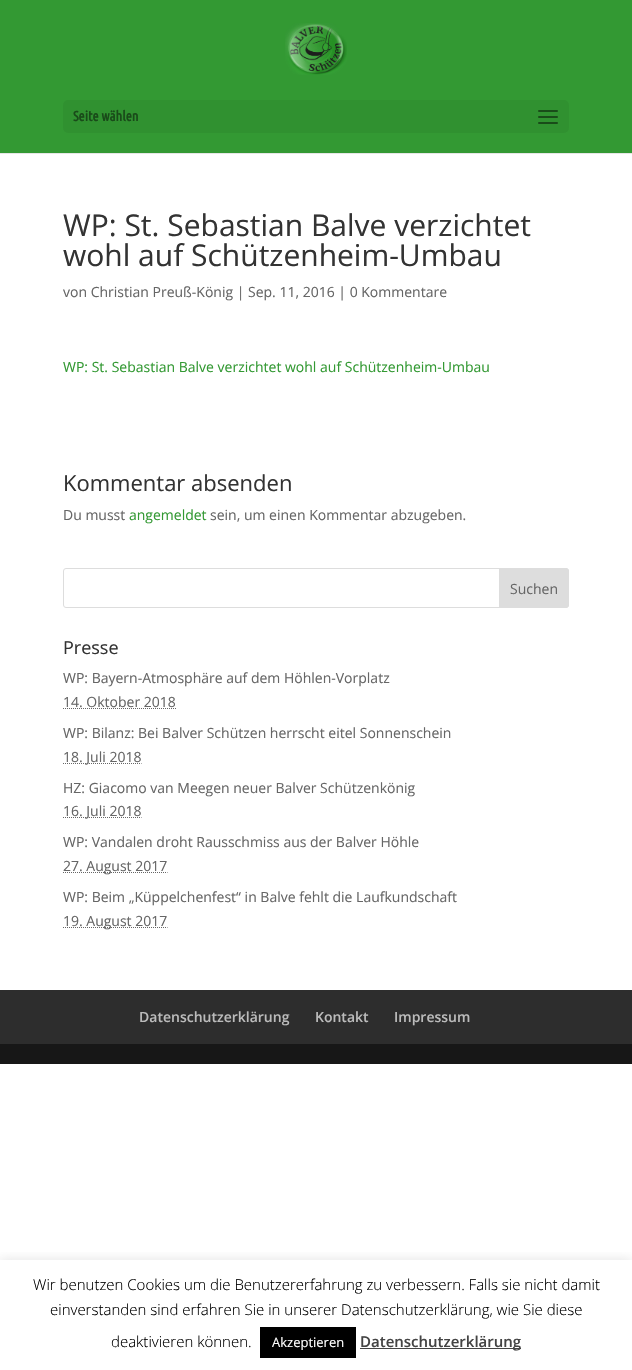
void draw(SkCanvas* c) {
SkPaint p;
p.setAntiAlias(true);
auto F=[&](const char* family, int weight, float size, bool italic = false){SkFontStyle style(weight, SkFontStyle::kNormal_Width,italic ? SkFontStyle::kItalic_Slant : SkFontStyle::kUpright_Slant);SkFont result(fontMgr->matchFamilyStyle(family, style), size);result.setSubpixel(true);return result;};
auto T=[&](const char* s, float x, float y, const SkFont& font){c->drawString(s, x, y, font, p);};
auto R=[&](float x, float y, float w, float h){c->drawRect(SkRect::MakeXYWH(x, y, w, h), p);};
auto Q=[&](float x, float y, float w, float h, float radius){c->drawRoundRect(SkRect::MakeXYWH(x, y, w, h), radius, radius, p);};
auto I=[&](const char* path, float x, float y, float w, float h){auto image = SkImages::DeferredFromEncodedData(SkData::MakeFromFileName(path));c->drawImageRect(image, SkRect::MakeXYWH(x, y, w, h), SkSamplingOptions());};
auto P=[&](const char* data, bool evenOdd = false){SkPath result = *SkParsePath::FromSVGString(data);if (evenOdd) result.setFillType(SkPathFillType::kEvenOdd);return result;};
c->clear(0xffffffff);
p.setColor(0xffe6e6e6);
R(0,153,632,1);
p.setColor(0xff339933);
R(0,0,632,153);
I("1.png",285,23,62,52);
p.setColor(0xff309130);
Q(63,100,506,33,5);
auto f1 = F("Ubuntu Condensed",700,14);
p.setColor(0xff194b19);
T("Seite wählen",73,121,f1);
I("2.png",538,110,20,14);
auto f2 = F("Open Sans",400,30);
p.setColor(0xff333333);
T("WP: St. Sebastian Balve verzichtet",63,236,f2);
T("wohl auf Schützenheim-Umbau",63,266,f2);
auto f3 = F("Open Sans",400,14);
p.setColor(0xff666666);
T("von Christian Preuß-König | Sep. 11, 2016 | 0 Kommentare",63,297,f3);
p.setColor(0xff339933);
T("WP: St. Sebastian Balve verzichtet wohl auf Schützenheim-Umbau",63,372,f3);
auto f4 = F("Open Sans",400,22);
p.setColor(0xff333333);
T("Kommentar absenden",63,491,f4);
p.setColor(0xff666666);
T("Du musst",63,520,f3);
p.setColor(0xff339933);
T("angemeldet",129,520,f3);
p.setColor(0xff666666);
T("sein, um einen Kommentar abzugeben.",210,520,f3);
p.setStroke(true);
p.setStrokeWidth(1);
p.setColor(0xffdddddd);
c->drawRoundRect(SkRect::MakeXYWH(63.5,568.5,505,39),2.5,2.5,p);
p.setStroke(false);
c->drawPath(P("M499.5 568.5h66.5c1.5 0 2.5 1 2.5 2.5v34c0 1.5-1 2.5-2.5 2.5h-66.5z"),p);
p.setStroke(true);
c->drawPath(P("M499.5 568.5h66.5c1.5 0 2.5 1 2.5 2.5v34c0 1.5-1 2.5-2.5 2.5h-66.5z"),p);
p.setStroke(false);
p.setColor(0xff666666);
T("Suchen",510,594,f3);
auto f5 = F("Open Sans",400,18);
p.setColor(0xff333333);
T("Presse",63,654,f5);
p.setColor(0xff666666);
T("WP: Bayern-Atmosphäre auf dem Höhlen-Vorplatz",63,683,f3);
T("14. Oktober 2018",63,707,f3);
p.setStroke(true);
p.setPathEffect(SkDashPathEffect::Make({{1,1}}, 0));
c->drawPath(P("M63 708.5h113"),p);
p.setPathEffect(nullptr);
p.setStroke(false);
T("WP: Bilanz: Bei Balver Schützen herrscht eitel Sonnenschein",63,738,f3);
p.setStroke(true);
p.setPathEffect(SkDashPathEffect::Make({{1,1}}, 0));
c->drawPath(P("M63 763.5h78.5"),p);
p.setPathEffect(nullptr);
p.setStroke(false);
T("18. Juli 2018",63,762,f3);
T("HZ: Giacomo van Meegen neuer Balver Schützenkönig",63,793,f3);
p.setStroke(true);
p.setPathEffect(SkDashPathEffect::Make({{1,1}}, 0));
c->drawPath(P("M63 817.5h78.5"),p);
p.setPathEffect(nullptr);
p.setStroke(false);
T("16. Juli 2018",63,816,f3);
T("WP: Vandalen droht Rausschmiss aus der Balver Höhle",63,847,f3);
p.setStroke(true);
p.setPathEffect(SkDashPathEffect::Make({{1,1}}, 0));
c->drawPath(P("M63 872.5h104.5"),p);
p.setPathEffect(nullptr);
p.setStroke(false);
T("27. August 2017",63,871,f3);
T("WP: Beim „Küppelchenfest“ in Balve fehlt die Laufkundschaft",63,902,f3);
p.setStroke(true);
p.setPathEffect(SkDashPathEffect::Make({{1,1}}, 0));
c->drawPath(P("M63 927.5h104.5"),p);
p.setPathEffect(nullptr);
p.setStroke(false);
T("19. August 2017",63,926,f3);
p.setColor(0xff2d2d2d);
R(0,990,632,54);
auto f6 = F("Open Sans",600,14);
p.setColor(0xffbbbbbb);
T("Datenschutzerklärung",139,1022,f6);
T("Kontakt",315,1022,f6);
T("Impressum",394,1022,f6);
p.setColor(0xff171717);
R(0,1044,632,20);
c->save();
c->clipRect(SkRect::MakeXYWH(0,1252,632,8));
p.setColor(0x4dacabab);
p.setMaskFilter(SkMaskFilter::MakeBlur(kNormal_SkBlurStyle, 5));
c->drawRect(SkRect::MakeXYWH(0,1259,632,110),p);
p.setMaskFilter(nullptr);
c->restore();
auto f7 = F("Open Sans",300,15);
p.setColor(0xff000000);
T("Wir benutzen Cookies um die Benutzererfahrung zu verbessern. Falls sie nicht damit",33,1290,f7);
T("einverstanden sind erfahren Sie in unserer Datenschutzerklärung, wie Sie diese",50,1315,f7);
T("deaktivieren können.",111,1347,f7);
R(260,1327,96,31);
auto f8 = F("Open Sans",400,13);
p.setColor(0xffffffff);
T("Akzeptieren",272,1347,f8);
p.setColor(0xff444444);
R(360,1348,161,1);
auto f9 = F("Open Sans",600,15);
T("Datenschutzerklärung",360,1347,f9);
}
